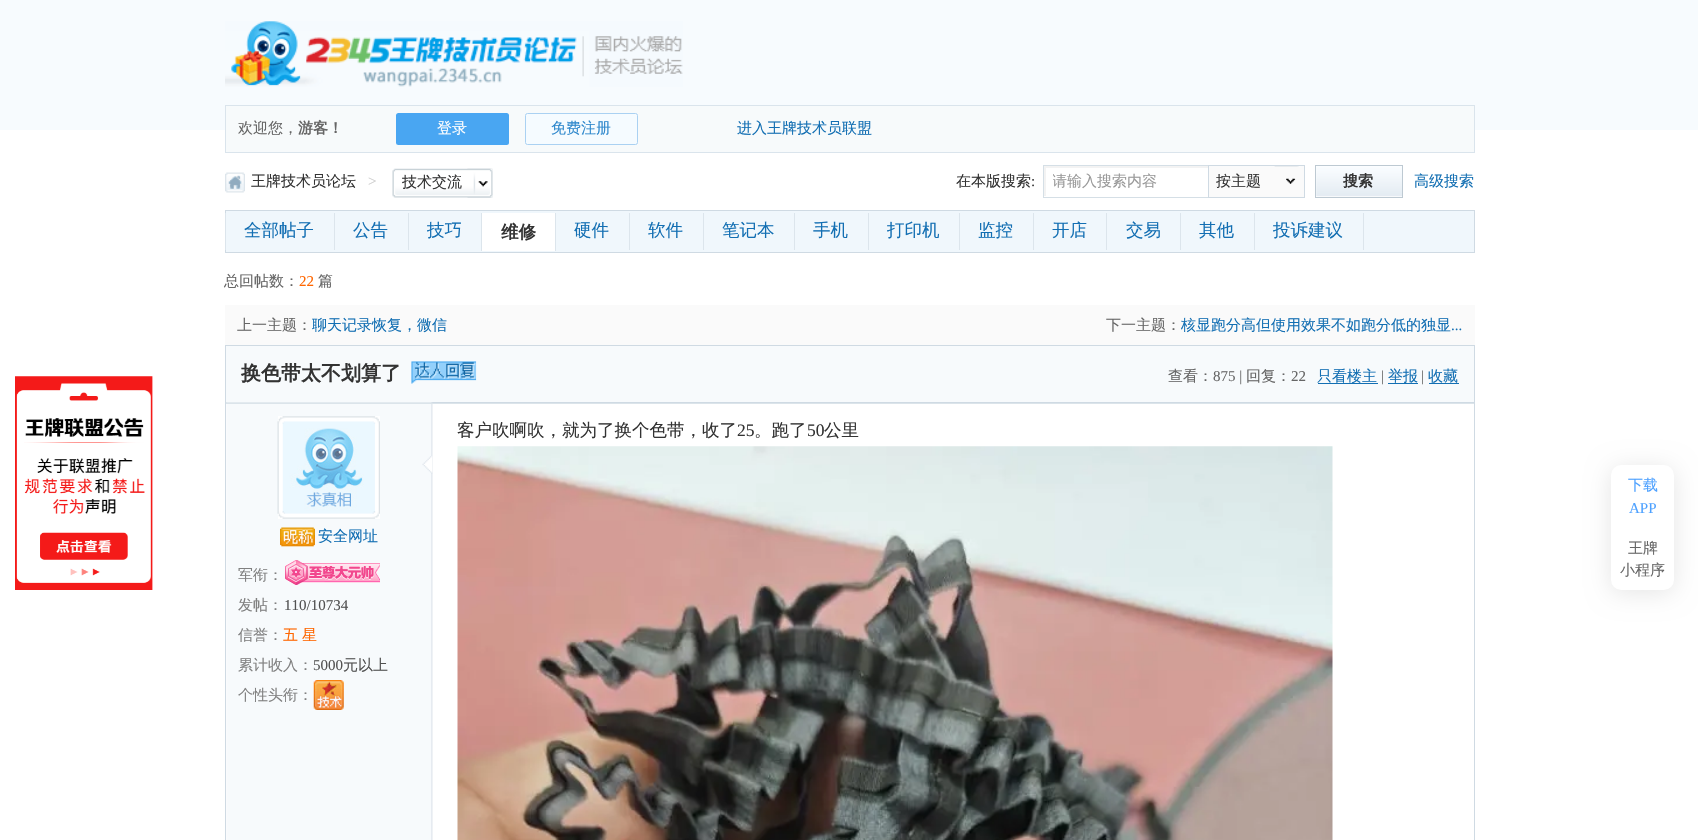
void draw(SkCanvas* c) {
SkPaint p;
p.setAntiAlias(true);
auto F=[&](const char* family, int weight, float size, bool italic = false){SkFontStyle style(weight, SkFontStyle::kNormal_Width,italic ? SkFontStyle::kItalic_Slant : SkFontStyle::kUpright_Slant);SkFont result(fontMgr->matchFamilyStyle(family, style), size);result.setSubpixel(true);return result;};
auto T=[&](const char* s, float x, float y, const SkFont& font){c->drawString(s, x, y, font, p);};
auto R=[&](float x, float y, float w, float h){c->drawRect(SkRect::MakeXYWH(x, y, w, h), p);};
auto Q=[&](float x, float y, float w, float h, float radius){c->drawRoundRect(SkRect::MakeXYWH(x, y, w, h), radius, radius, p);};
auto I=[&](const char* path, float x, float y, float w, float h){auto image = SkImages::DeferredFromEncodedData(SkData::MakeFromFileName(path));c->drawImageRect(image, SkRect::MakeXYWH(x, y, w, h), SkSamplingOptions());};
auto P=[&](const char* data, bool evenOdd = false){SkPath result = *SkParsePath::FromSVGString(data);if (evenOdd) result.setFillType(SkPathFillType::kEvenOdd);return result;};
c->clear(0xffffffff);
p.setColor(0xfff7fbfe);
R(0,0,1698,130);
I("1.png",225,21,458,66);
p.setColor(0xfff7fafb);
c->drawRect(SkRect::MakeXYWH(225.5,105.5,1249,47),p);
p.setStroke(true);
p.setStrokeWidth(1);
p.setColor(0xffdae4ec);
c->drawRect(SkRect::MakeXYWH(225.5,105.5,1249,47),p);
auto f1 = F("WenQuanYi Zen Hei",500,15);
p.setStroke(false);
p.setColor(0xff666666);
T("欢迎您，",238,133,f1);
auto f2 = F("WenQuanYi Zen Hei",700,15);
T("游客！",298,133,f2);
p.setColor(0xff49a6f2);
Q(396,113,113,32,2.5);
p.setColor(0xffffffff);
T("登录",437,133,f1);
p.setColor(0xfff5fbff);
c->drawRoundRect(SkRect::MakeXYWH(525.5,113.5,112,31),2,2,p);
p.setStroke(true);
p.setColor(0xffaad1f2);
c->drawRoundRect(SkRect::MakeXYWH(525.5,113.5,112,31),2,2,p);
p.setStroke(false);
p.setColor(0xff2d87cc);
T("免费注册",551,133,f1);
p.setColor(0xff136fb3);
T("进入王牌技术员联盟",737,133,f1);
I("2.png",15,376,138,214);
I("3.png",225,172,20,21);
p.setColor(0xff333333);
T("王牌技术员论坛",251,186,f1);
auto f3 = F("Liberation Serif",400,15);
p.setColor(0xffcccccc);
T(">",368,186,f3);
I("4.png",392,168,101,30);
I("5.png",467,168,26,30);
p.setColor(0xff333333);
T("技术交流",402,187,f1);
T("在本版搜索",956,186,f1);
T(":",1031,186,f3);
c->save();
c->clipRect(SkRect::MakeXYWH(1044,166,260,30));
p.setColor(0xfff3f3f3);
c->drawPath(P("M920 42h508v278h-508zm126 126h260v30h-260z",true),p);
c->restore();
p.setStroke(true);
p.setColor(0xffd5dfe6);
c->drawRect(SkRect::MakeXYWH(1043.5,165.5,261,32),p);
c->save();
c->clipRect(SkRect::MakeXYWH(1053,173,150,17));
p.setStroke(false);
p.setColor(0xff999999);
T("请输入搜索内容",1052,186,f1);
c->restore();
p.setColor(0xfffafafa);
R(1209,166,95,31);
I("6.png",1274,166,26,18);
p.setStroke(true);
p.setColor(0xffcfdae3);
c->drawRect(SkRect::MakeXYWH(1208.5,165.5,96,32),p);
p.setStroke(false);
p.setColor(0xff333333);
T("按主题",1216,186,f1);
I("7.png",1316,166,86,31);
p.setStroke(true);
p.setColor(0xffbdc9d2);
c->drawRect(SkRect::MakeXYWH(1315.5,165.5,87,32),p);
p.setStroke(false);
p.setColor(0xff333333);
T("搜索",1343,186,f2);
p.setColor(0xff136fb3);
T("高级搜索",1414,186,f1);
p.setColor(0xfff0f7fc);
c->drawRect(SkRect::MakeXYWH(225.5,210.5,1249,42),p);
p.setStroke(true);
p.setColor(0xffcfdae3);
c->drawRect(SkRect::MakeXYWH(225.5,210.5,1249,42),p);
p.setStroke(false);
p.setColor(0xffdce5ec);
R(334,213,1,37);
R(225,213,1,37);
auto f4 = F("WenQuanYi Zen Hei",500,17.5);
p.setColor(0xff136fb3);
T("全部帖子",244,236,f4);
p.setColor(0xffdce5ec);
R(408,213,1,37);
p.setColor(0xff136fb3);
T("公告",353,236,f4);
T("技巧",427,236,f4);
p.setColor(0xffffffff);
R(482,213,73,38);
p.setColor(0xffdce5ec);
R(555,213,1,38);
R(481,213,1,38);
auto f5 = F("WenQuanYi Zen Hei",700,17.5);
p.setColor(0xff333333);
T("维修",501,238,f5);
p.setColor(0xffdce5ec);
R(629,213,1,37);
p.setColor(0xff136fb3);
T("硬件",574,236,f4);
p.setColor(0xffdce5ec);
R(703,213,1,37);
p.setColor(0xff136fb3);
T("软件",648,236,f4);
p.setColor(0xffdce5ec);
R(794,213,1,37);
p.setColor(0xff136fb3);
T("笔记本",722,236,f4);
p.setColor(0xffdce5ec);
R(868,213,1,37);
p.setColor(0xff136fb3);
T("手机",813,236,f4);
p.setColor(0xffdce5ec);
R(959,213,1,37);
p.setColor(0xff136fb3);
T("打印机",887,236,f4);
p.setColor(0xffdce5ec);
R(1033,213,1,37);
p.setColor(0xff136fb3);
T("监控",978,236,f4);
p.setColor(0xffdce5ec);
R(1106,213,1,37);
p.setColor(0xff136fb3);
T("开店",1052,236,f4);
p.setColor(0xffdce5ec);
R(1180,213,1,37);
p.setColor(0xff136fb3);
T("交易",1126,236,f4);
p.setColor(0xffdce5ec);
R(1254,213,1,37);
p.setColor(0xff136fb3);
T("其他",1199,236,f4);
p.setColor(0xffdce5ec);
R(1363,213,1,37);
p.setColor(0xff136fb3);
T("投诉建议",1273,236,f4);
p.setColor(0xff666666);
T("总回帖数：",224,286,f1);
p.setColor(0xffff6600);
T("22",299,286,f3);
p.setColor(0xff666666);
T("篇",318,286,f1);
p.setColor(0xfffafafa);
R(225,305,1250,40);
p.setColor(0xff666666);
T("上一主题：",237,330,f1);
p.setColor(0xff136fb3);
T("聊天记录恢复，微信",312,330,f1);
p.setColor(0xff666666);
T("下一主题：",1106,330,f1);
p.setColor(0xff136fb3);
T("核显跑分高但使用效果不如跑分低的独显",1181,330,f1);
T("...",1451,330,f3);
p.setColor(0xfff7fafc);
c->drawRect(SkRect::MakeXYWH(225.5,345.5,1249,57),p);
p.setStroke(true);
p.setColor(0xffcfdae3);
c->drawRect(SkRect::MakeXYWH(225.5,345.5,1249,57),p);
auto f6 = F("WenQuanYi Zen Hei",700,20);
p.setStroke(false);
p.setColor(0xff333333);
T("换色带太不划算了",241,380,f6);
I("8.png",411,361,66,23);
p.setColor(0xff666666);
T("查看：",1168,381,f1);
T("875 |",1213,381,f3);
T("回复：",1246,381,f1);
T("22",1291,381,f3);
p.setColor(0xff136fb3);
R(1318,383,60,1);
T("只看楼主",1317,381,f1);
p.setColor(0xff666666);
T("|",1381,381,f3);
p.setColor(0xff136fb3);
R(1388,383,30,1);
T("举报",1388,381,f1);
p.setColor(0xff666666);
T("|",1421,381,f3);
p.setColor(0xff136fb3);
R(1429,383,30,1);
T("收藏",1428,381,f1);
I("9.png",226,402,207,438);
p.setColor(0xffdbe4ea);
R(225,403,1250,1);
p.setColor(0xffcfdae3);
R(1474,403,1,437);
R(225,403,1,437);
p.setColor(0xff333333);
T("客户吹啊吹，就为了换个色带，收了",457,436,f4);
auto f7 = F("Liberation Serif",400,17.5);
T("25",737,436,f7);
T("。跑了",754,436,f4);
T("50",807,436,f7);
T("公里",824,436,f4);
I("10.png",457,446,876,394);
p.setColor(0xffffffff);
R(278,416,102,103);
I("12.png",282,421,93,93);
I("11.png",277,416,103,103);
I("13.png",422,456,11,18);
I("14.png",280,527,35,20);
p.setColor(0xff136fb3);
T("安全网址",318,541,f1);
p.setColor(0xff808080);
T("军衔：",238,580,f1);
I("15.png",285,560,95,25);
T("发帖：",238,610,f1);
p.setColor(0xff515151);
T("110/10734",284,610,f3);
p.setColor(0xff808080);
T("信誉：",238,640,f1);
p.setColor(0xffff6600);
T("五",283,640,f1);
T("星",302,640,f1);
p.setColor(0xff808080);
T("累计收入：",238,670,f1);
p.setColor(0xff515151);
T("5000",313,670,f3);
T("元以上",343,670,f1);
p.setColor(0xff808080);
T("个性头衔：",238,700,f1);
I("16.png",313,680,31,30);
p.setColor(0x1a000000);
p.setMaskFilter(SkMaskFilter::MakeBlur(kNormal_SkBlurStyle, 12.5));
c->drawRoundRect(SkRect::MakeXYWH(1611,468,63,125),10,10,p);
p.setMaskFilter(nullptr);
p.setColor(0xffffffff);
Q(1611,465,63,125,10);
p.setColor(0xff4da1ff);
T("下载",1628,490,f1);
T("APP",1629,513,f3);
p.setColor(0xff666666);
T("王牌",1628,553,f1);
T("小程序",1620,575,f1);
}
